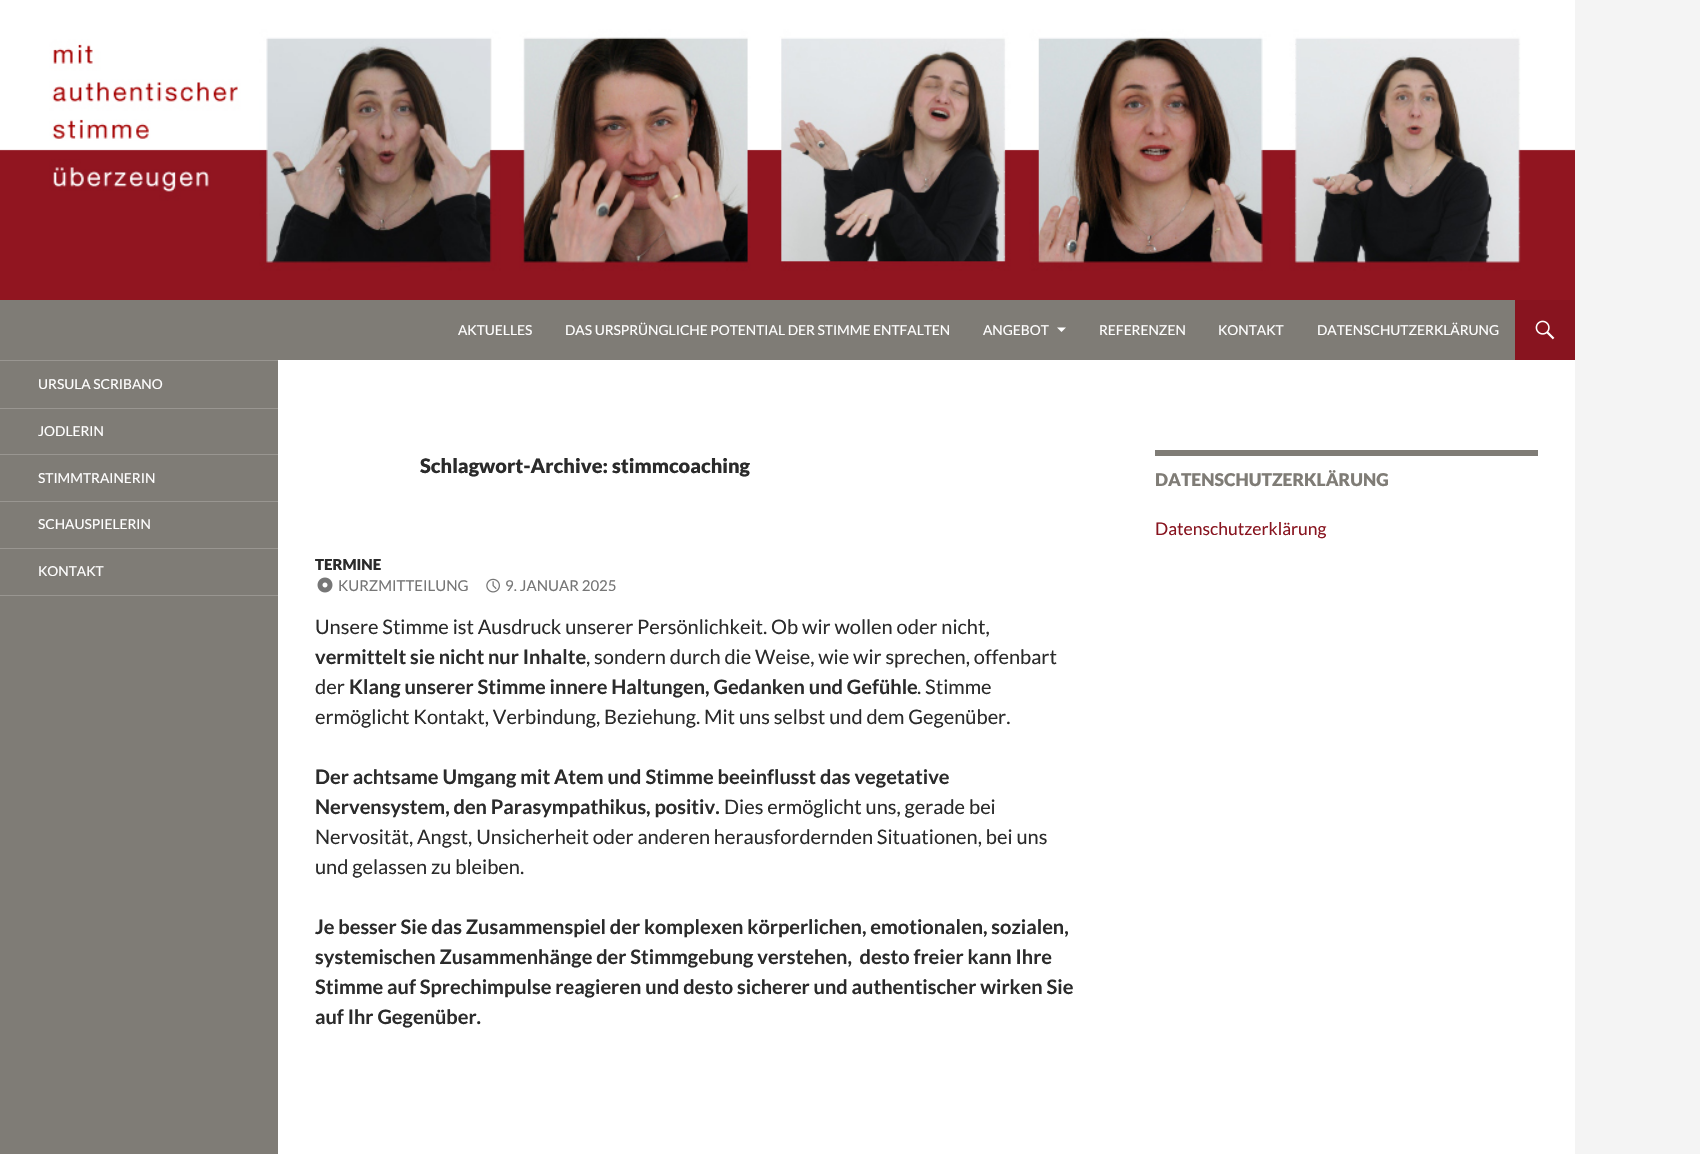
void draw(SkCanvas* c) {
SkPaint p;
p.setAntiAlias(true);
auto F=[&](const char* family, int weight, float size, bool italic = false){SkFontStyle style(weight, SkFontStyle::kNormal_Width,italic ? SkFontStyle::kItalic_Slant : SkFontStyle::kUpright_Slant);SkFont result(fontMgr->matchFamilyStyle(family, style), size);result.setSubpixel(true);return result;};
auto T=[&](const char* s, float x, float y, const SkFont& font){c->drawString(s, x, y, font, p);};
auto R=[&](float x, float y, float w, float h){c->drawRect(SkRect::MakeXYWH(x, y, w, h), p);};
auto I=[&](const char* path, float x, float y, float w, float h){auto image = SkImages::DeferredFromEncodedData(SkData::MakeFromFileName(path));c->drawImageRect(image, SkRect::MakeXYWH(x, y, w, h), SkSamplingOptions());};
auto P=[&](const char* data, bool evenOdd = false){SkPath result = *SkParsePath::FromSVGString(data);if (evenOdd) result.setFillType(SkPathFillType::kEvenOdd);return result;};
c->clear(0xfff4f4f4);
p.setColor(0xffffffff);
R(278,360,1297,794);
I("1.png",0,0,1575,300);
p.setColor(0xff7f7c76);
R(0,300,1515,60);
auto f1 = F("Lato",400,13.75);
p.setColor(0xffffffff);
T("AKTUELLES",458,335,f1);
T("DAS URSPRÜNGLICHE POTENTIAL DER STIMME ENTFALTEN",565,335,f1);
T("ANGEBOT",983,335,f1);
c->drawPath(P("M1057 327.5l4.5 4.5l4.5-4.5z"),p);
T("REFERENZEN",1099,335,f1);
T("KONTAKT",1218,335,f1);
T("DATENSCHUTZERKLÄRUNG",1317,335,f1);
p.setColor(0xff88141f);
R(1515,300,60,60);
I("2.png",1535,320,20,20);
p.setColor(0xff7f7c76);
R(0,361,278,793);
p.setColor(0xff999691);
R(0,595,278,1);
R(0,360,278,1);
p.setColor(0xffffffff);
T("URSULA SCRIBANO",38,389,f1);
p.setColor(0xff999691);
R(0,408,278,1);
p.setColor(0xffffffff);
T("JODLERIN",38,436,f1);
p.setColor(0xff999691);
R(0,454,278,1);
p.setColor(0xffffffff);
T("STIMMTRAINERIN",38,483,f1);
p.setColor(0xff999691);
R(0,501,278,1);
p.setColor(0xffffffff);
T("SCHAUSPIELERIN",38,529,f1);
p.setColor(0xff999691);
R(0,548,278,1);
p.setColor(0xffffffff);
T("KONTAKT",38,576,f1);
auto f2 = F("Lato",900,20);
p.setColor(0xff2b2b2b);
T("Schlagwort-Archive: stimmcoaching",420,473,f2);
auto f3 = F("Lato",900,15);
T("TERMINE",315,570,f3);
I("3.png",317,577,16,16);
auto f4 = F("Lato",400,15);
p.setColor(0xff767676);
T("KURZMITTEILUNG",338,591,f4);
I("4.png",486,578,14,15);
T("9. JANUAR 2025",505,591,f4);
auto f5 = F("Lato",400,20);
p.setColor(0xff2b2b2b);
T("Unsere Stimme ist Ausdruck unserer Persönlichkeit. Ob wir wollen oder nicht,",315,634,f5);
auto f6 = F("Lato",700,20);
T("vermittelt sie nicht nur Inhalte",315,664,f6);
T(", sondern durch die Weise, wie wir sprechen, offenbart",586,664,f5);
T("der",315,694,f5);
T("Klang unserer Stimme innere Haltungen, Gedanken und Gefühle",349,694,f6);
T(". Stimme",917,694,f5);
T("ermöglicht Kontakt, Verbindung, Beziehung. Mit uns selbst und dem Gegenüber.",315,724,f5);
T("Der achtsame Umgang mit Atem und Stimme beeinflusst das vegetative",315,784,f6);
T("Nervensystem, den Parasympathikus, positiv.",315,814,f6);
T("Dies ermöglicht uns, gerade bei",724,814,f5);
T("Nervosität, Angst, Unsicherheit oder anderen herausfordernden Situationen, bei uns",315,844,f5);
T("und gelassen zu bleiben.",315,874,f5);
T("Je besser Sie das Zusammenspiel der komplexen körperlichen, emotionalen, sozialen,",315,934,f6);
T("systemischen Zusammenhänge der Stimmgebung verstehen,  desto freier kann Ihre",315,964,f6);
T("Stimme auf Sprechimpulse reagieren und desto sicherer und authentischer wirken Sie",315,994,f6);
T("auf Ihr Gegenüber.",315,1024,f6);
p.setColor(0xff7f7c76);
R(1155,450,383,6);
auto f7 = F("Lato",900,17.5);
T("DATENSCHUTZERKLÄRUNG",1155,486,f7);
auto f8 = F("Lato",400,17.5);
p.setColor(0xff88141f);
T("Datenschutzerklärung",1155,535,f8);
}
